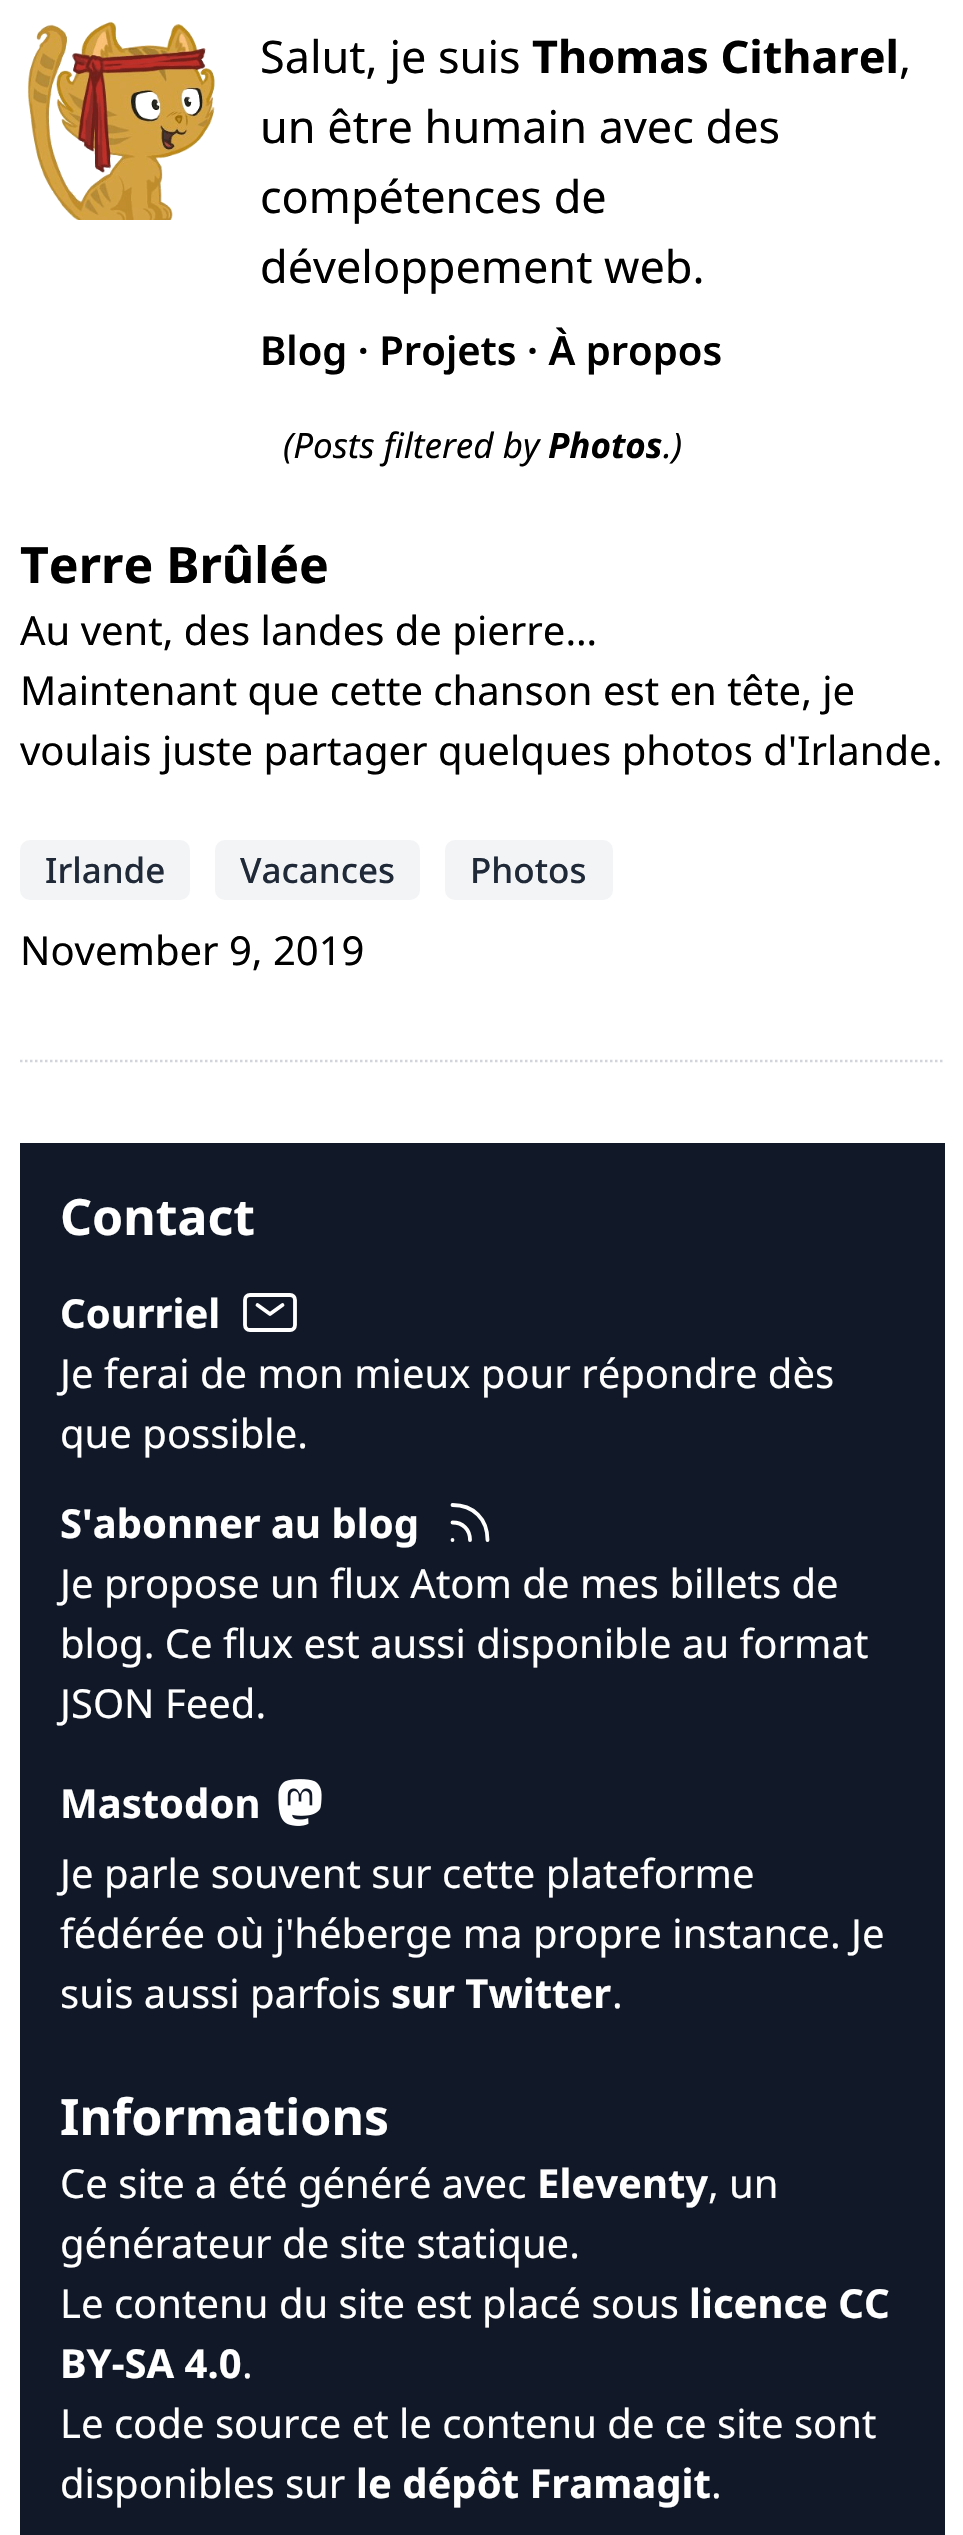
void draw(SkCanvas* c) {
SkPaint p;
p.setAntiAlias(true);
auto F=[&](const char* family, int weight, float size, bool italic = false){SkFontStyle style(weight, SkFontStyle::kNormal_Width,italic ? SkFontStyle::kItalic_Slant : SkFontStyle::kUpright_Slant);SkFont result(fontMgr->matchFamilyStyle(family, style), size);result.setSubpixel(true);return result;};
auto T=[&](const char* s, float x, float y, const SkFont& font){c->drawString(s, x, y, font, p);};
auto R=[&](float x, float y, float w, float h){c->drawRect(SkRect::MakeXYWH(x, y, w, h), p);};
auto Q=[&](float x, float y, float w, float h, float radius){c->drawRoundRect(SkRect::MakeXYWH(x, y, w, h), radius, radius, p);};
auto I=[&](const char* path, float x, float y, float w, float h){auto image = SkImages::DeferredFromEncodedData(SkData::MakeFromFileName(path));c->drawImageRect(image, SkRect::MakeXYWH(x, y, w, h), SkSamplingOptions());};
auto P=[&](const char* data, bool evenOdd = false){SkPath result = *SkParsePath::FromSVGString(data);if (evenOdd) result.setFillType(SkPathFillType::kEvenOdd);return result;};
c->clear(0xffffffff);
I("1.png",27,21,188,199);
auto f1 = F("Noto Sans",400,45);
p.setColor(0xff000000);
T("Salut, je suis",260,73,f1);
auto f2 = F("Noto Sans",700,45);
T("Thomas Citharel",532,73,f2);
T(",",899,73,f1);
T("un être humain avec des",260,143,f1);
T("compétences de",260,213,f1);
T("développement web.",260,283,f1);
auto f3 = F("Noto Sans",600,40);
T("Blog · Projets · À propos",260,365,f3);
auto f4 = F("Noto Sans",400,35,true);
T("(Posts filtered by",283,458,f4);
auto f5 = F("Noto Sans",700,35,true);
T("Photos",548,458,f5);
T(".)",663,458,f4);
p.setStroke(true);
p.setStrokeWidth(2.5);
p.setColor(0xffd1d5db);
p.setPathEffect(SkDashPathEffect::Make({{2.5f,2.5f}}, 0));
c->drawPath(P("M20 1061h925"),p);
p.setPathEffect(nullptr);
auto f6 = F("Noto Sans",700,50);
p.setStroke(false);
p.setColor(0xff000000);
T("Terre Brûlée",20,583,f6);
auto f7 = F("Noto Sans",400,40);
T("Au vent, des landes de pierre…",20,645,f7);
T("Maintenant que cette chanson est en tête, je",20,705,f7);
T("voulais juste partager quelques photos d'Irlande.",20,765,f7);
p.setColor(0xfff3f4f6);
Q(20,840,170,60,10);
auto f8 = F("Noto Sans",500,35);
p.setColor(0xff1f2937);
T("Irlande",45,883,f8);
p.setColor(0xfff3f4f6);
Q(215,840,205,60,10);
p.setColor(0xff1f2937);
T("Vacances",240,883,f8);
p.setColor(0xfff3f4f6);
Q(445,840,168,60,10);
p.setColor(0xff1f2937);
T("Photos",470,883,f8);
p.setColor(0xff000000);
T("November 9, 2019",20,965,f7);
p.setColor(0xff111827);
R(20,1143,925,1392);
p.setColor(0xffffffff);
T("Contact",60,1235,f6);
auto f9 = F("Noto Sans",700,40);
T("Courriel",60,1328,f9);
p.setStroke(true);
p.setStrokeWidth(3.8);
p.setStrokeCap(SkPaint::kRound_Cap);
p.setStrokeJoin(SkPaint::kRound_Join);
c->drawPath(P("M257.5 1305l12.5 9l12.5-9"),p);
p.setStrokeCap(SkPaint::kButt_Cap);
p.setStrokeJoin(SkPaint::kMiter_Join);
c->drawPath(P("M245 1325v-25c0-3 2-5 5-5h40c3 0 5 2 5 5v25c0 3-2 5-5 5h-40c-3 0-5-2-5-5z"),p);
p.setStroke(false);
T("Je ferai de mon mieux pour répondre dès",60,1388,f7);
T("que possible.",60,1448,f7);
T("S'abonner au blog",60,1538,f9);
p.setStroke(true);
p.setStrokeCap(SkPaint::kRound_Cap);
p.setStrokeJoin(SkPaint::kRound_Join);
c->drawPath(P("M470 1540c0-10.5-7-17.5-17.5-17.5m35 17.5c0-21-14-35-35-35m0 35h0"),p);
p.setStroke(false);
T("Je propose un flux Atom de mes billets de",60,1598,f7);
T("blog. Ce flux est aussi disponible au format",60,1658,f7);
T("JSON Feed.",60,1718,f7);
T("Mastodon",60,1818,f9);
I("2.png",278,1779,44,47);
T("Je parle souvent sur cette plateforme",60,1888,f7);
T("fédérée où j'héberge ma propre instance. Je",60,1948,f7);
T("suis aussi parfois",60,2008,f7);
T("sur Twitter",391,2008,f9);
T(".",612,2008,f7);
T("Informations",60,2135,f6);
T("Ce site a été généré avec",60,2198,f7);
T("Eleventy",537,2198,f9);
T(", un",708,2198,f7);
T("générateur de site statique.",60,2258,f7);
T("Le contenu du site est placé sous",60,2318,f7);
T("licence CC",689,2318,f9);
T("BY-SA 4.0",60,2378,f9);
T(".",242,2378,f7);
T("Le code source et le contenu de ce site sont",60,2438,f7);
T("disponibles sur",60,2498,f7);
T("le dépôt Framagit",356,2498,f9);
T(".",711,2498,f7);
}
